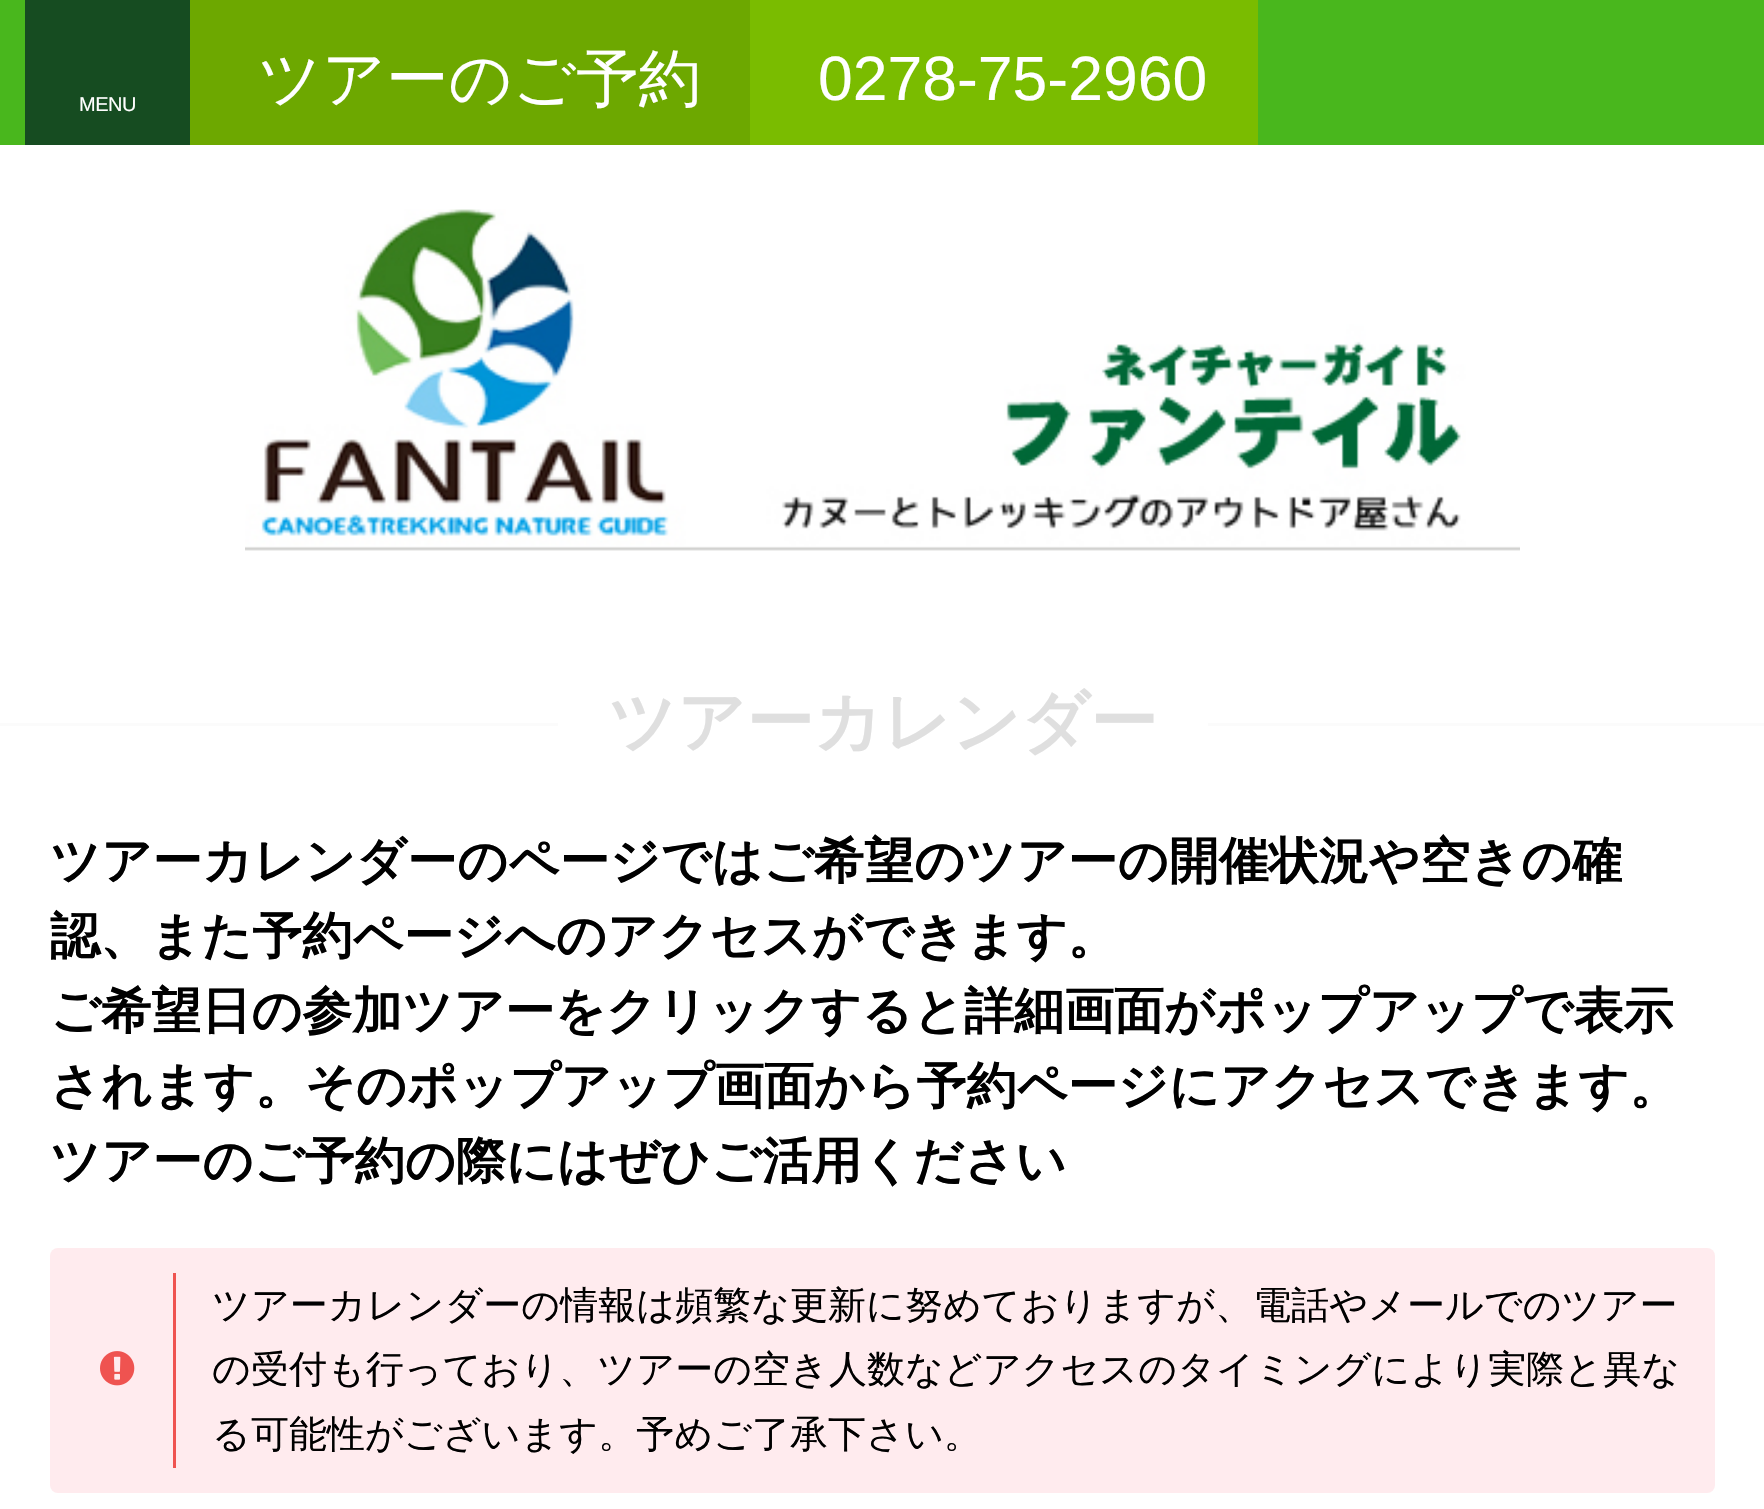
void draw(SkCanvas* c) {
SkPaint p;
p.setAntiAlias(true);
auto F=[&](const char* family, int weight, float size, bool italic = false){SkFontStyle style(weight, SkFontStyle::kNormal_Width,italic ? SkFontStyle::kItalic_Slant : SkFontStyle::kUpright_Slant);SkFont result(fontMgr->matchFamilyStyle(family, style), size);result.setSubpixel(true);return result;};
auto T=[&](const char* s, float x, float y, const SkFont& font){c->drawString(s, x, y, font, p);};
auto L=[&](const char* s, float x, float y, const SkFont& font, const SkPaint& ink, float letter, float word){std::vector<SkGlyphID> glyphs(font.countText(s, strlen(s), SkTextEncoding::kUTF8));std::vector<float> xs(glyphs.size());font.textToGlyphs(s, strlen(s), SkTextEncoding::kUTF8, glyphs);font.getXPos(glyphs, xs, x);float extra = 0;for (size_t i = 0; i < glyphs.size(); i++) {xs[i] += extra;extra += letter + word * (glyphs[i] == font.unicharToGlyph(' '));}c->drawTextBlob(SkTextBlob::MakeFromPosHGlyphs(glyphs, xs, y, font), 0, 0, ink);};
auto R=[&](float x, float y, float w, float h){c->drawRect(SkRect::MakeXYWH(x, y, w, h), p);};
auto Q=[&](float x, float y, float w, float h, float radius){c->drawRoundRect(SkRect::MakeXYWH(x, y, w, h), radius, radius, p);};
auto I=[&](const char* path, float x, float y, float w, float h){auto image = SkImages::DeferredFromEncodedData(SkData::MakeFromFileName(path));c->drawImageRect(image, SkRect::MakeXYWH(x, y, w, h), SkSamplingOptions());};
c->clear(0xffffffff);
p.setColor(0xff49b71d);
R(0,0,1764,145);
p.setColor(0xff6da800);
R(190,0,560,145);
auto f1 = F("WenQuanYi Zen Hei",500,62.5);
p.setColor(0xffffffff);
T("ツアーのご予約",258,100,f1);
p.setColor(0xff7abc00);
R(750,0,508,145);
auto f2 = F("Liberation Sans",400,62.5);
p.setColor(0xffffffff);
T("0278-75-2960",818,100,f2);
p.setColor(0xff164c21);
R(25,0,165,145);
auto f3 = F("Liberation Sans",400,20);
p.setColor(0xffffffff);
L("MENU",79,111,f3,p,-.5,0);
I("1.png",245,209,1275,342);
p.setColor(0xfffbfbfb);
R(0,723,558,3);
auto f4 = F("WenQuanYi Zen Hei",700,67.5);
p.setColor(0xffdfdfdf);
T("ツアーカレンダー",608,745,f4);
p.setColor(0xfffbfbfb);
R(1208,723,556,3);
auto f5 = F("WenQuanYi Zen Hei",700,50);
p.setColor(0xff000000);
T("ツアーカレンダーのページではご希望のツアーの開催状況や空きの確",50,878,f5);
T("認、また予約ページへのアクセスができます。",50,953,f5);
T("ご希望日の参加ツアーをクリックすると詳細画面がポップアップで表示",50,1028,f5);
T("されます。そのポップアップ画面から予約ページにアクセスできます。",50,1103,f5);
T("ツアーのご予約の際にはぜひご活用ください",50,1178,f5);
p.setColor(0xffffebee);
Q(50,1248,1665,245,8);
I("2.png",100,1351,35,35);
p.setColor(0xffef5350);
R(173,1273,3,195);
auto f6 = F("WenQuanYi Zen Hei",500,38);
p.setColor(0xff000000);
T("ツアーカレンダーの情報は頻繁な更新に努めておりますが、電話やメールでのツアー",212,1318,f6);
T("の受付も行っており、ツアーの空き人数などアクセスのタイミングにより実際と異な",212,1382,f6);
T("る可能性がございます。予めご了承下さい。",212,1447,f6);
}
